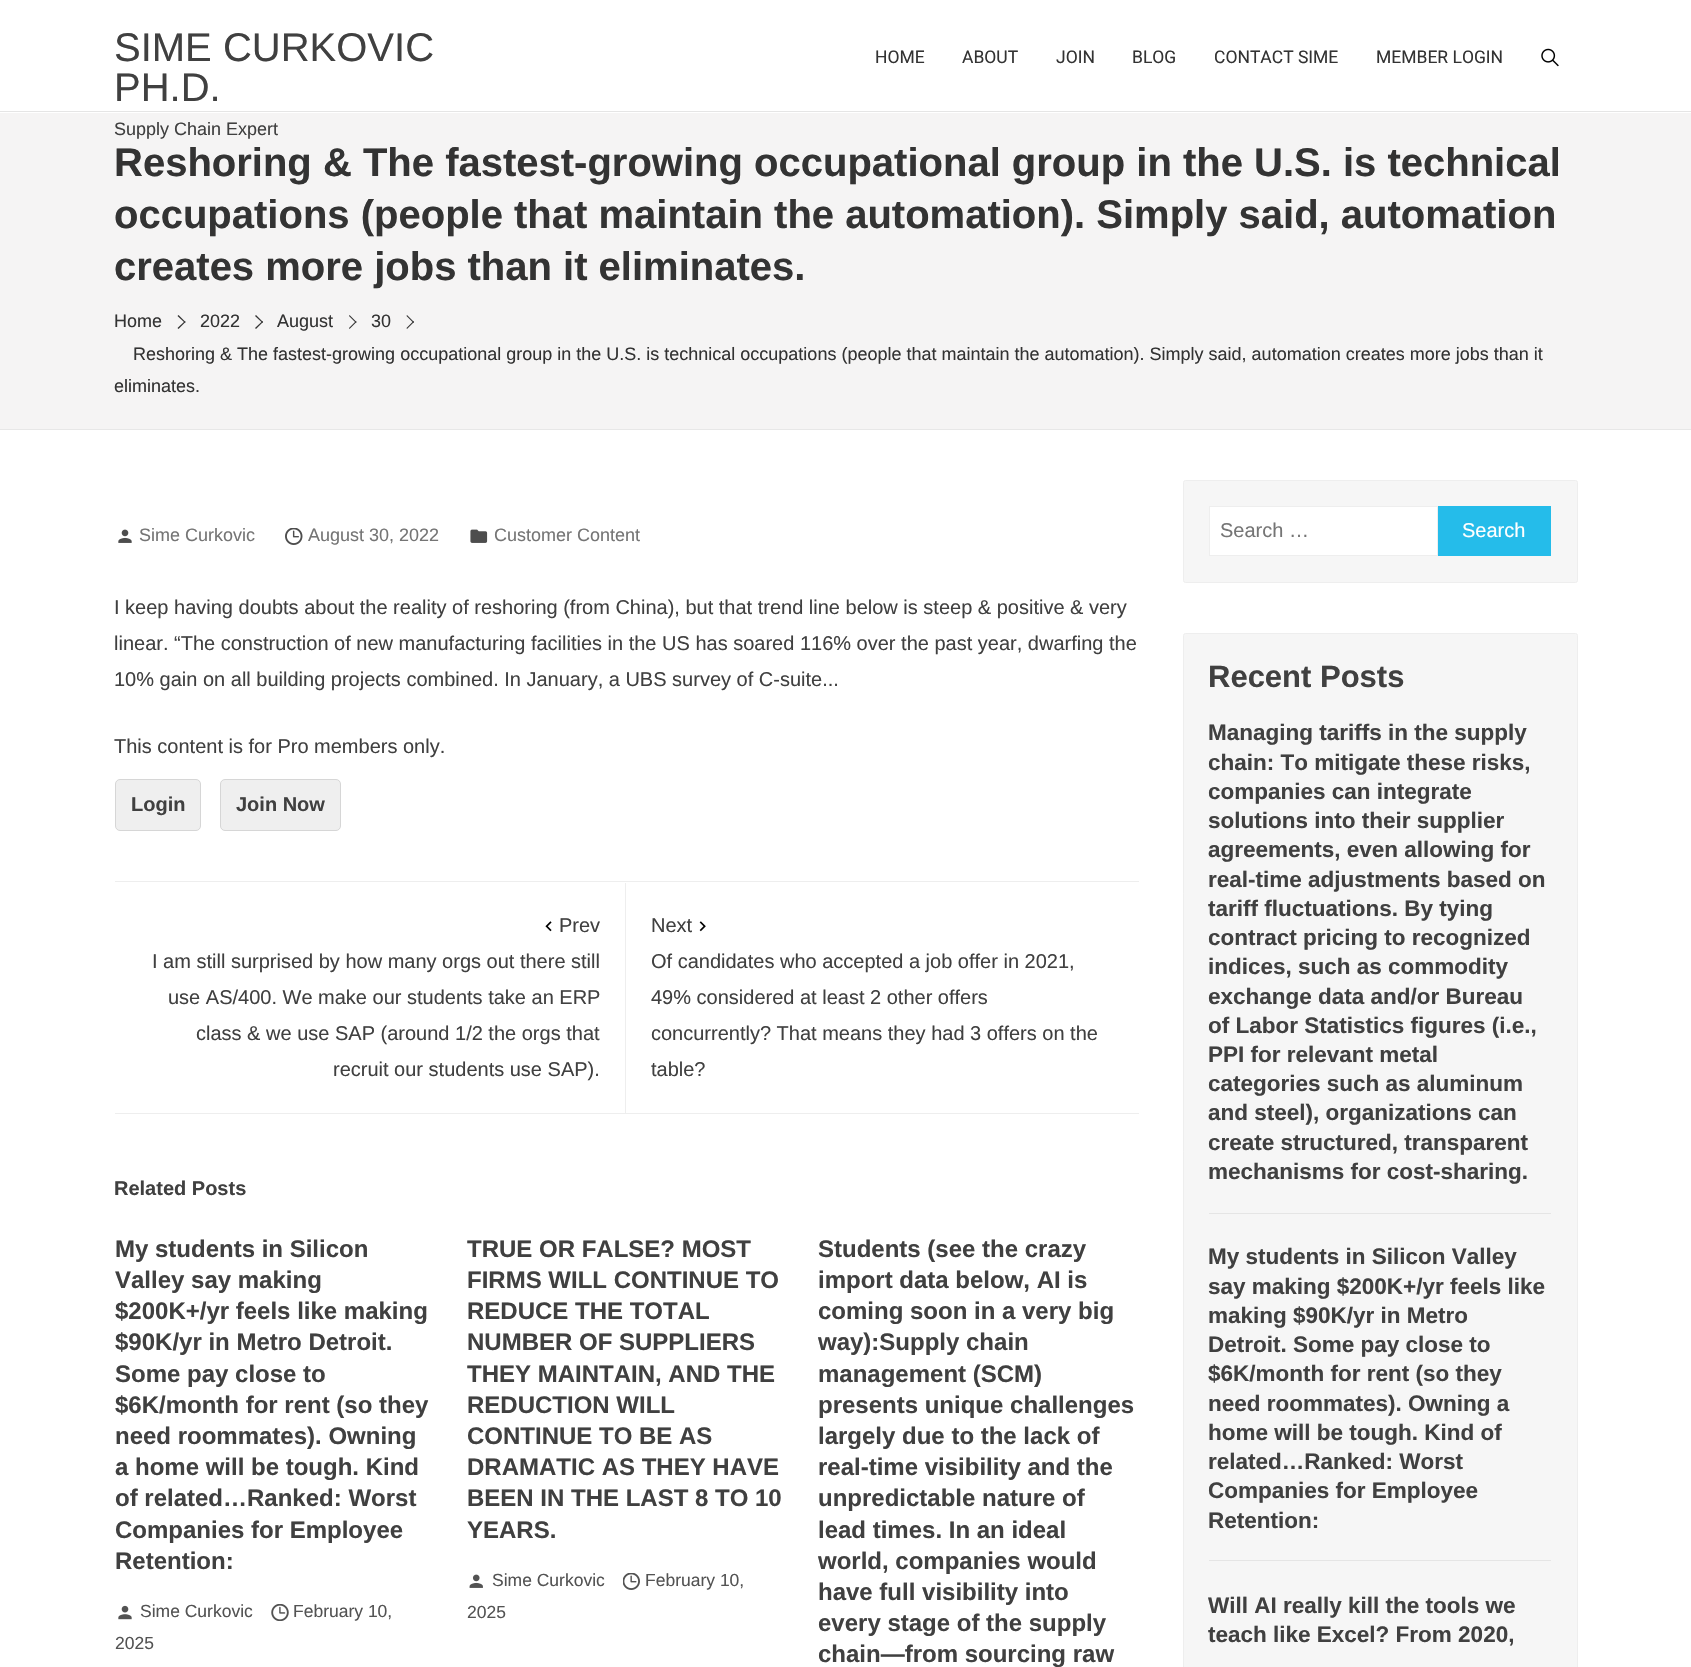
void draw(SkCanvas* c) {
SkPaint p;
p.setAntiAlias(true);
auto F=[&](const char* family, int weight, float size, bool italic = false){SkFontStyle style(weight, SkFontStyle::kNormal_Width,italic ? SkFontStyle::kItalic_Slant : SkFontStyle::kUpright_Slant);SkFont result(fontMgr->matchFamilyStyle(family, style), size);result.setSubpixel(true);return result;};
auto T=[&](const char* s, float x, float y, const SkFont& font){c->drawString(s, x, y, font, p);};
auto R=[&](float x, float y, float w, float h){c->drawRect(SkRect::MakeXYWH(x, y, w, h), p);};
auto I=[&](const char* path, float x, float y, float w, float h){auto image = SkImages::DeferredFromEncodedData(SkData::MakeFromFileName(path));c->drawImageRect(image, SkRect::MakeXYWH(x, y, w, h), SkSamplingOptions());};
auto P=[&](const char* data, bool evenOdd = false){SkPath result = *SkParsePath::FromSVGString(data);if (evenOdd) result.setFillType(SkPathFillType::kEvenOdd);return result;};
c->clear(0xffffffff);
p.setColor(0xffe5e5e5);
R(0,111,1691,1);
auto f1 = F("Liberation Sans",400,40);
p.setColor(0xff404040);
T("SIME CURKOVIC",114,61,f1);
T("PH.D.",114,101,f1);
p.setColor(0xfff5f4f4);
R(0,113,1691,316);
auto f2 = F("Liberation Sans",400,18);
p.setColor(0xff404040);
T("Supply Chain Expert",114,135,f2);
auto f3 = F("Roboto",400,17.5);
p.setColor(0xff333333);
T("HOME",875,63,f3);
T("ABOUT",962,63,f3);
T("JOIN",1056,63,f3);
T("BLOG",1132,63,f3);
T("CONTACT SIME",1214,63,f3);
T("MEMBER LOGIN",1376,63,f3);
I("1.png",1541,48,18,19);
p.setColor(0xffe7e7e7);
R(0,429,1691,1);
auto f4 = F("Liberation Sans",700,40);
p.setColor(0xff333333);
T("Reshoring & The fastest-growing occupational group in the U.S. is technical",114,176,f4);
T("occupations (people that maintain the automation). Simply said, automation",114,228,f4);
T("creates more jobs than it eliminates.",114,280,f4);
T("Home",114,327,f2);
c->drawPath(P("M185.5 322l-7 7l-1-1l7.5-7z"),p);
c->drawPath(P("M185.5 322l-.5 1l-7.5-7l1-1z"),p);
T("2022",200,327,f2);
c->drawPath(P("M263 322l-7 7l-1-1l7.5-7z"),p);
c->drawPath(P("M263 322l-.5 1l-7.5-7l1-1z"),p);
T("August",277,327,f2);
c->drawPath(P("M356.5 322l-7 7l-.5-1l7-7z"),p);
c->drawPath(P("M356.5 322l-.5 1l-7-7l.5-1z"),p);
T("30",371,327,f2);
c->drawPath(P("M414 322l-7 7l-.5-1l7-7z"),p);
c->drawPath(P("M414 322l-.5 1l-7-7l.5-1z"),p);
T("Reshoring & The fastest-growing occupational group in the U.S. is technical occupations (people that maintain the automation). Simply said, automation creates more jobs than it",133,360,f2);
T("eliminates.",114,392,f2);
I("2.png",118,529,14,14);
p.setColor(0xff757575);
T("Sime Curkovic",139,541,f2);
I("3.png",285,528,18,17);
T("August 30, 2022",308,541,f2);
I("4.png",470,529,18,14);
T("Customer Content",494,541,f2);
auto f5 = F("Liberation Sans",400,20);
p.setColor(0xff404040);
T("I keep having doubts about the reality of reshoring (from China), but that trend line below is steep & positive & very",114,614,f5);
T("linear. “The construction of new manufacturing facilities in the US has soared 116% over the past year, dwarfing the",114,650,f5);
T("10% gain on all building projects combined. In January, a UBS survey of C-suite...",114,686,f5);
T("This content is for Pro members only.",114,753,f5);
p.setColor(0xffefefef);
c->drawRoundRect(SkRect::MakeXYWH(115.5,779.5,85,51),4.5,4.5,p);
p.setStroke(true);
p.setStrokeWidth(1);
p.setColor(0xffd6d6d6);
c->drawRoundRect(SkRect::MakeXYWH(115.5,779.5,85,51),4.5,4.5,p);
auto f6 = F("Liberation Sans",700,20);
p.setStroke(false);
p.setColor(0xff404040);
T("Login",131,811,f6);
p.setColor(0xffefefef);
c->drawRoundRect(SkRect::MakeXYWH(220.5,779.5,120,51),4.5,4.5,p);
p.setStroke(true);
p.setColor(0xffd6d6d6);
c->drawRoundRect(SkRect::MakeXYWH(220.5,779.5,120,51),4.5,4.5,p);
p.setStroke(false);
p.setColor(0xff404040);
T("Join Now",236,811,f6);
p.setColor(0xffeeeeee);
R(115,881,1024,1);
R(115,1113,1024,1);
R(625,883,1,230);
I("5.png",545,921,7,11);
p.setColor(0xff404040);
T("Prev",559,932,f5);
T("I am still surprised by how many orgs out there still",152,968,f5);
T("use AS/400. We make our students take an ERP",168,1004,f5);
T("class & we use SAP (around 1/2 the orgs that",196,1040,f5);
T("recruit our students use SAP).",333,1076,f5);
T("Next",651,932,f5);
I("6.png",699,921,7,11);
T("Of candidates who accepted a job offer in 2021,",651,968,f5);
T("49% considered at least 2 other offers",651,1004,f5);
T("concurrently? That means they had 3 offers on the",651,1040,f5);
T("table?",651,1076,f5);
T("Related Posts",114,1195,f6);
auto f7 = F("Liberation Sans",700,24);
T("My students in Silicon",115,1257,f7);
T("Valley say making",115,1288,f7);
T("$200K+/yr feels like making",115,1319,f7);
T("$90K/yr in Metro Detroit.",115,1350,f7);
T("Some pay close to",115,1382,f7);
T("$6K/month for rent (so they",115,1413,f7);
T("need roommates). Owning",115,1444,f7);
T("a home will be tough. Kind",115,1475,f7);
T("of related…Ranked: Worst",115,1506,f7);
T("Companies for Employee",115,1538,f7);
T("Retention:",115,1569,f7);
I("7.png",118,1605,14,15);
auto f8 = F("Liberation Sans",400,17.5);
p.setColor(0xff535353);
T("Sime Curkovic",140,1617,f8);
I("8.png",271,1604,18,17);
T("February 10,",293,1617,f8);
T("2025",115,1649,f8);
p.setColor(0xff404040);
T("TRUE OR FALSE? MOST",467,1257,f7);
T("FIRMS WILL CONTINUE TO",467,1288,f7);
T("REDUCE THE TOTAL",467,1319,f7);
T("NUMBER OF SUPPLIERS",467,1350,f7);
T("THEY MAINTAIN, AND THE",467,1382,f7);
T("REDUCTION WILL",467,1413,f7);
T("CONTINUE TO BE AS",467,1444,f7);
T("DRAMATIC AS THEY HAVE",467,1475,f7);
T("BEEN IN THE LAST 8 TO 10",467,1506,f7);
T("YEARS.",467,1538,f7);
I("9.png",469,1574,14,14);
p.setColor(0xff535353);
T("Sime Curkovic",492,1586,f8);
I("10.png",623,1573,17,17);
T("February 10,",645,1586,f8);
T("2025",467,1618,f8);
p.setColor(0xff404040);
T("Students (see the crazy",818,1257,f7);
T("import data below, AI is",818,1288,f7);
T("coming soon in a very big",818,1319,f7);
T("way):Supply chain",818,1350,f7);
T("management (SCM)",818,1382,f7);
T("presents unique challenges",818,1413,f7);
T("largely due to the lack of",818,1444,f7);
T("real-time visibility and the",818,1475,f7);
T("unpredictable nature of",818,1506,f7);
T("lead times. In an ideal",818,1538,f7);
T("world, companies would",818,1569,f7);
T("have full visibility into",818,1600,f7);
T("every stage of the supply",818,1631,f7);
T("chain—from sourcing raw",818,1662,f7);
p.setColor(0xfff6f6f6);
c->drawRoundRect(SkRect::MakeXYWH(1183.5,480.5,394,102),2,2,p);
p.setStroke(true);
p.setColor(0xffeeeeee);
c->drawRoundRect(SkRect::MakeXYWH(1183.5,480.5,394,102),2,2,p);
p.setStroke(false);
p.setColor(0xffffffff);
c->drawRect(SkRect::MakeXYWH(1209.5,506.5,228,49),p);
p.setStroke(true);
p.setColor(0xffeeeeee);
c->drawRect(SkRect::MakeXYWH(1209.5,506.5,228,49),p);
p.setStroke(false);
p.setColor(0xff757575);
T("Search …",1220,537,f5);
p.setColor(0xff25bcea);
R(1438,506,113,50);
p.setColor(0xffffffff);
T("Search",1462,537,f5);
p.setColor(0xfff6f6f6);
c->drawRoundRect(SkRect::MakeXYWH(1183.5,633.5,394,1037),2,2,p);
p.setStroke(true);
p.setColor(0xffeeeeee);
c->drawRoundRect(SkRect::MakeXYWH(1183.5,633.5,394,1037),2,2,p);
auto f9 = F("Liberation Sans",700,31);
p.setStroke(false);
p.setColor(0xff404040);
T("Recent Posts",1208,687,f9);
p.setColor(0xffe5e5e5);
R(1209,1213,342,1);
auto f10 = F("Liberation Sans",700,22.5);
p.setColor(0xff404040);
T("Managing tariffs in the supply",1208,740,f10);
T("chain: To mitigate these risks,",1208,770,f10);
T("companies can integrate",1208,799,f10);
T("solutions into their supplier",1208,828,f10);
T("agreements, even allowing for",1208,857,f10);
T("real-time adjustments based on",1208,887,f10);
T("tariff fluctuations. By tying",1208,916,f10);
T("contract pricing to recognized",1208,945,f10);
T("indices, such as commodity",1208,974,f10);
T("exchange data and/or Bureau",1208,1004,f10);
T("of Labor Statistics figures (i.e.,",1208,1033,f10);
T("PPI for relevant metal",1208,1062,f10);
T("categories such as aluminum",1208,1091,f10);
T("and steel), organizations can",1208,1120,f10);
T("create structured, transparent",1208,1150,f10);
T("mechanisms for cost-sharing.",1208,1179,f10);
p.setColor(0xffe5e5e5);
R(1209,1560,342,1);
p.setColor(0xff404040);
T("My students in Silicon Valley",1208,1264,f10);
T("say making $200K+/yr feels like",1208,1294,f10);
T("making $90K/yr in Metro",1208,1323,f10);
T("Detroit. Some pay close to",1208,1352,f10);
T("$6K/month for rent (so they",1208,1381,f10);
T("need roommates). Owning a",1208,1411,f10);
T("home will be tough. Kind of",1208,1440,f10);
T("related…Ranked: Worst",1208,1469,f10);
T("Companies for Employee",1208,1498,f10);
T("Retention:",1208,1528,f10);
T("Will AI really kill the tools we",1208,1613,f10);
T("teach like Excel? From 2020,",1208,1642,f10);
}
